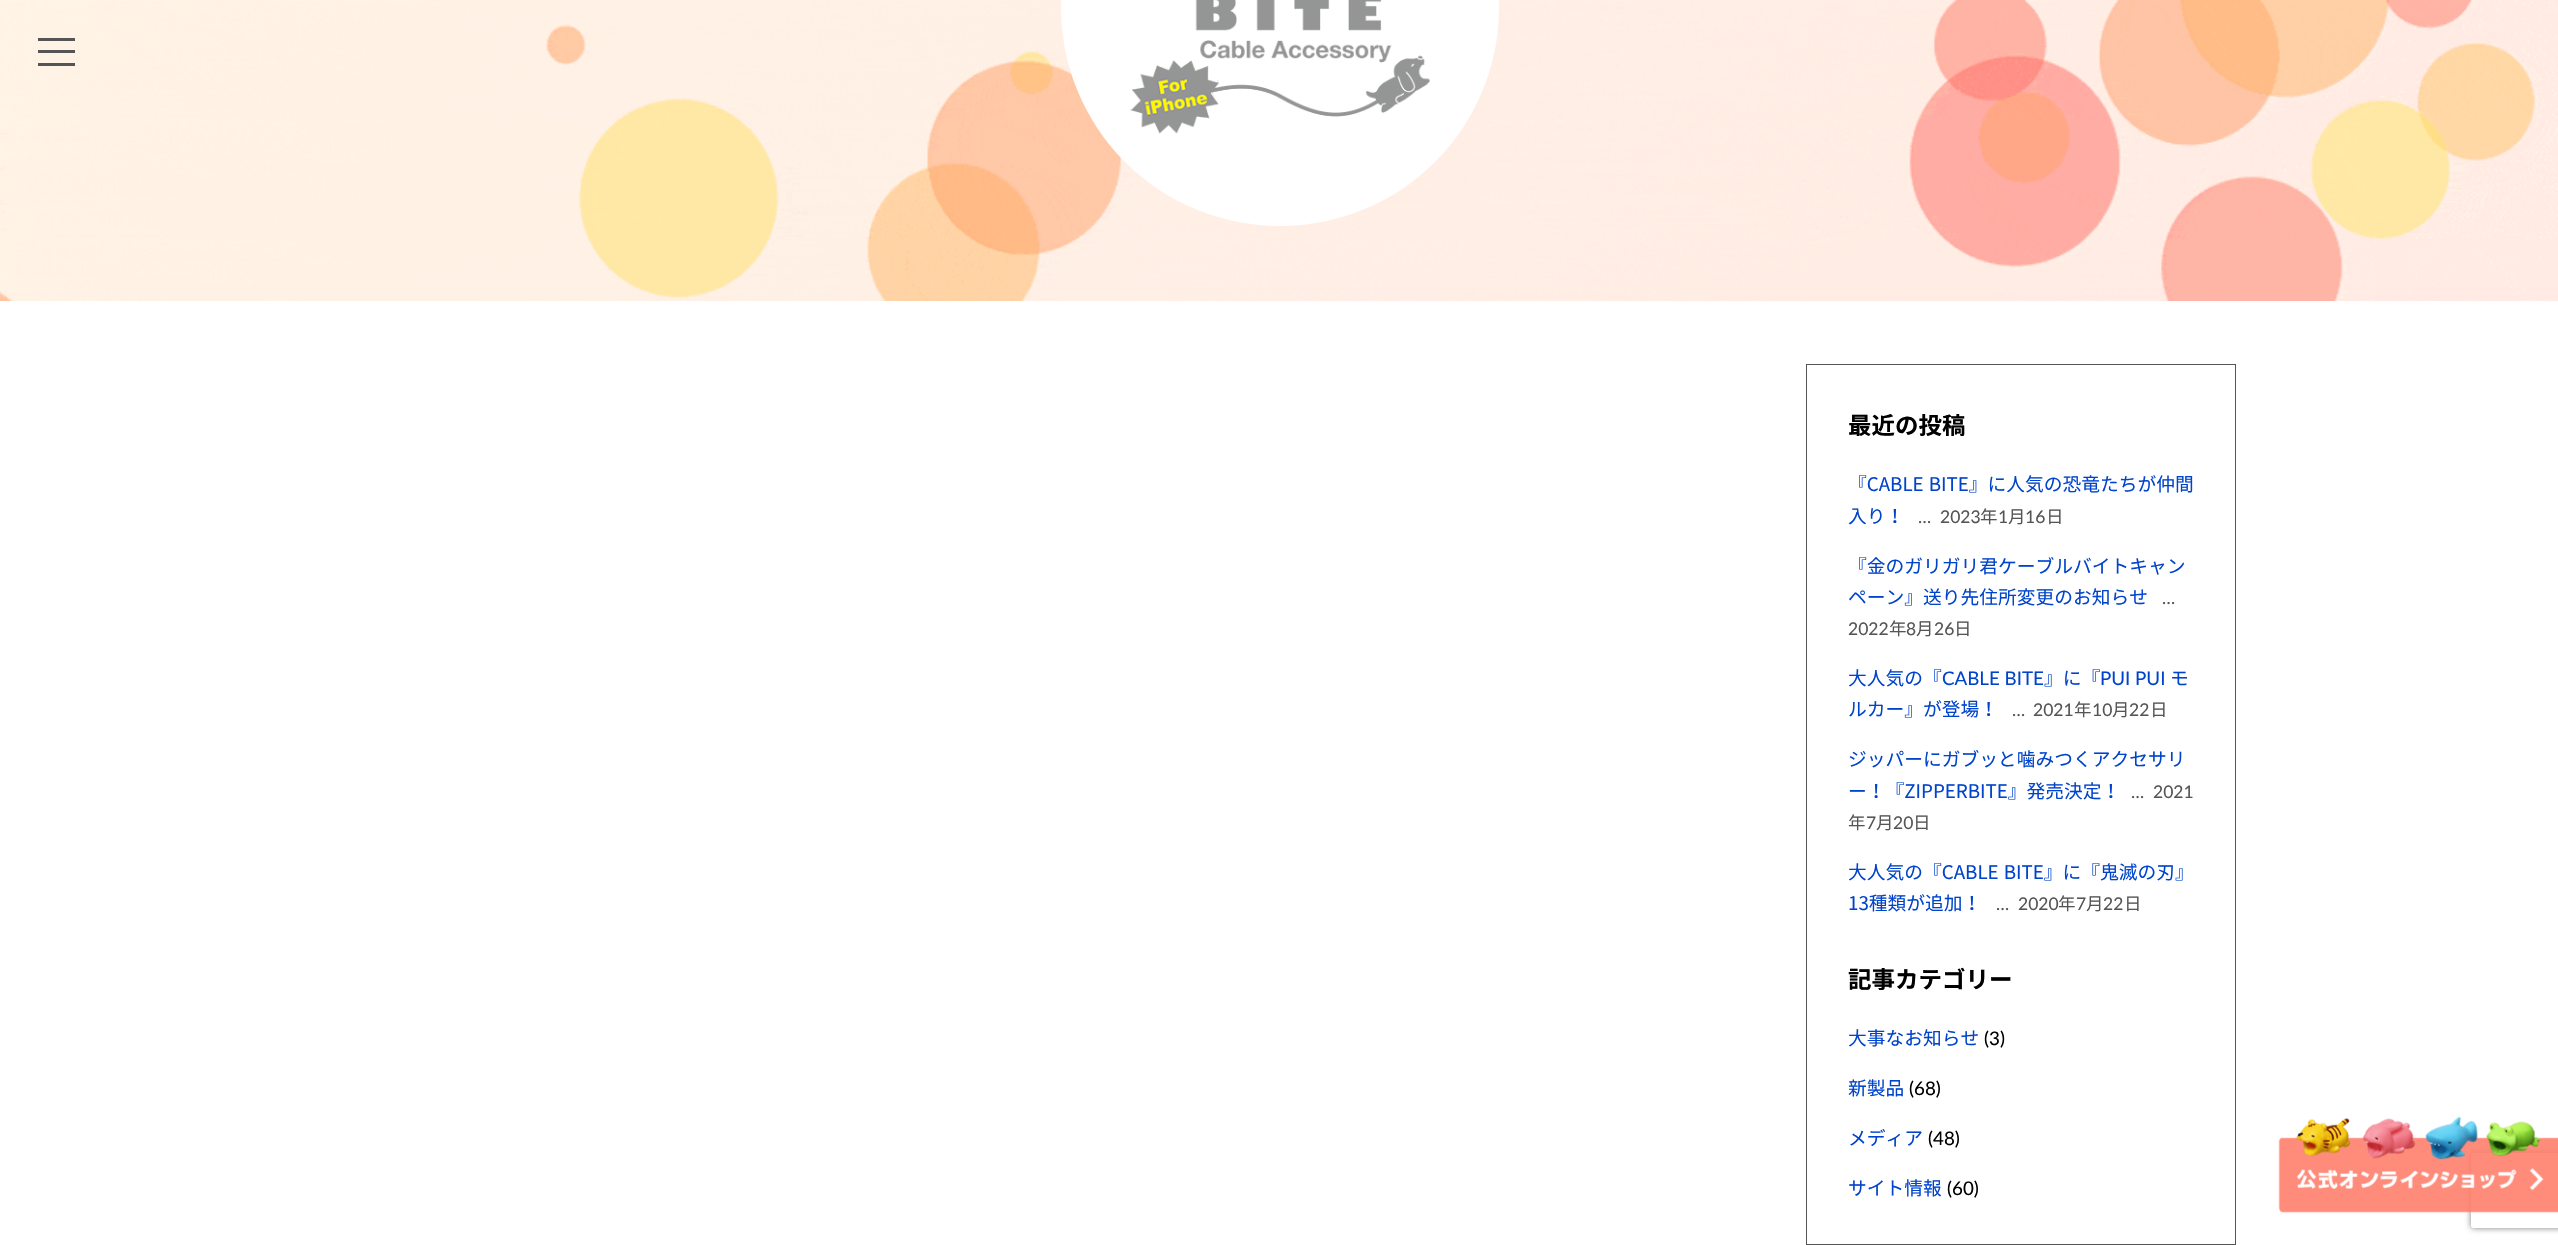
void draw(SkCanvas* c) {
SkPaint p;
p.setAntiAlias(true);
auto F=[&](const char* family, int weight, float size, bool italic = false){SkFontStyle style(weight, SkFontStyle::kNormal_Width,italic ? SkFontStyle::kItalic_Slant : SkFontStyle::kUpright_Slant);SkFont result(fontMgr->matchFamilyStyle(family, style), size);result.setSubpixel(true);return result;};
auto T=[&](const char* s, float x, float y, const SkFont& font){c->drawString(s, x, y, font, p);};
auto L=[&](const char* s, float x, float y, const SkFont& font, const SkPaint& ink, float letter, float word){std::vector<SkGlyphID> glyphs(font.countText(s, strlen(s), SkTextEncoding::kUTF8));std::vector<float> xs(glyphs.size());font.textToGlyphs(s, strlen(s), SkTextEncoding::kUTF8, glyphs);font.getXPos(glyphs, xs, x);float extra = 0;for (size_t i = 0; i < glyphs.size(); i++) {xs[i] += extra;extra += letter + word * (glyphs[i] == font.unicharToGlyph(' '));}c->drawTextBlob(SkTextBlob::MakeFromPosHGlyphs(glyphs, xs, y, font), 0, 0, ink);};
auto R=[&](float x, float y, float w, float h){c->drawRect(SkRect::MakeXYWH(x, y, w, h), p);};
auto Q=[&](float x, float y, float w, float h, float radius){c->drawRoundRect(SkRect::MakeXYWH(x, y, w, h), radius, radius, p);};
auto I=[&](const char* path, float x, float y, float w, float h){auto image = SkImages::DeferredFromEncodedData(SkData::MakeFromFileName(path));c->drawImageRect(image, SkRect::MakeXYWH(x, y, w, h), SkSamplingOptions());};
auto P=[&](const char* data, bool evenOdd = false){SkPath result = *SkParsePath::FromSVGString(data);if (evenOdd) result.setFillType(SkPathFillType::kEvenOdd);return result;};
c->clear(0xffffffff);
I("2.png",0,0,2558,301);
p.setColor(0xffffffff);
Q(1061,-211,438,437,218.5);
I("1.png",1130,0,300,134);
p.setColor(0xff555555);
R(38,50,37,3);
R(38,38,37,3);
R(38,63,37,3);
p.setStroke(true);
p.setStrokeWidth(1);
c->drawRect(SkRect::MakeXYWH(1806.5,364.5,429,880),p);
auto f1 = F("Noto Sans JP",700,23.5);
p.setStroke(false);
p.setColor(0xff000000);
T("最近の投稿",1848,434,f1);
auto f2 = F("Noto Sans JP",400,18.75);
p.setColor(0xff0044cc);
L("『CABLE BITE』に人気の恐竜たちが仲間",1848,491,f2,p,0,1);
T("入り！",1848,523,f2);
auto f3 = F("Lato",400,17.5);
p.setColor(0xff555555);
T("…",1918,523,f3);
T("2023",1940,523,f3);
auto f4 = F("Noto Sans JP",400,17.5);
T("年",1980,523,f4);
T("1",1998,523,f3);
T("月",2008,523,f4);
T("16",2025,523,f3);
T("日",2046,523,f4);
p.setColor(0xff0044cc);
T("『金のガリガリ君ケーブルバイトキャン",1848,573,f2);
T("ペーン』送り先住所変更のお知らせ",1848,604,f2);
p.setColor(0xff555555);
T("…",2162,604,f3);
T("2022",1848,635,f3);
T("年",1889,635,f4);
T("8",1906,635,f3);
T("月",1916,635,f4);
T("26",1934,635,f3);
T("日",1954,635,f4);
p.setColor(0xff0044cc);
T("大人気の『",1848,685,f2);
auto f5 = F("Lato",400,18.75);
T("CABLE BITE",1942,685,f5);
T("』に『",2044,685,f2);
T("PUI PUI",2100,685,f5);
T("モ",2170,685,f2);
T("ルカー』が登場！",1848,716,f2);
p.setColor(0xff555555);
T("…",2012,716,f3);
T("2021",2033,716,f3);
T("年",2074,716,f4);
T("10",2092,716,f3);
T("月",2112,716,f4);
T("22",2129,716,f3);
T("日",2150,716,f4);
p.setColor(0xff0044cc);
T("ジッパーにガブッと噛みつくアクセサリ",1848,766,f2);
T("ー！『ZIPPERBITE』発売決定！",1848,798,f2);
p.setColor(0xff555555);
T("…",2131,798,f3);
T("2021",2153,798,f3);
T("年",1848,829,f4);
T("7",1866,829,f3);
T("月",1876,829,f4);
T("20",1893,829,f3);
T("日",1913,829,f4);
p.setColor(0xff0044cc);
L("大人気の『CABLE BITE』に『鬼滅の刃』",1848,879,f2,p,0,1);
T("13種類が追加！",1848,910,f2);
p.setColor(0xff555555);
T("…",1996,910,f3);
T("2020",2018,910,f3);
T("年",2058,910,f4);
T("7",2076,910,f3);
T("月",2086,910,f4);
T("22",2103,910,f3);
T("日",2124,910,f4);
p.setColor(0xff000000);
T("記事カテゴリー",1848,988,f1);
p.setColor(0xff0044cc);
T("大事なお知らせ",1848,1045,f2);
p.setColor(0xff000000);
T("(3)",1984,1045,f5);
p.setColor(0xff0044cc);
T("新製品",1848,1095,f2);
p.setColor(0xff000000);
T("(68)",1909,1095,f5);
p.setColor(0xff0044cc);
T("メディア",1848,1145,f2);
p.setColor(0xff000000);
T("(48)",1928,1145,f5);
p.setColor(0xff0044cc);
T("サイト情報",1848,1195,f2);
p.setColor(0xff000000);
T("(60)",1947,1195,f5);
c->save();
c->clipPath(P("M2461 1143h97v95h-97zm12.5 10h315c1.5 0 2.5 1 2.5 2.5v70c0 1.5-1 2.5-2.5 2.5h-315c-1.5 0-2.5-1-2.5-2.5v-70c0-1.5 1-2.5 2.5-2.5z",true),true);
p.setColor(0xff808080);
p.setMaskFilter(SkMaskFilter::MakeBlur(kNormal_SkBlurStyle, 3));
c->drawRoundRect(SkRect::MakeXYWH(2471,1153,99,75),2.5,2.5,p);
p.setMaskFilter(nullptr);
c->restore();
I("3.png",2278,1116,280,97);
}
